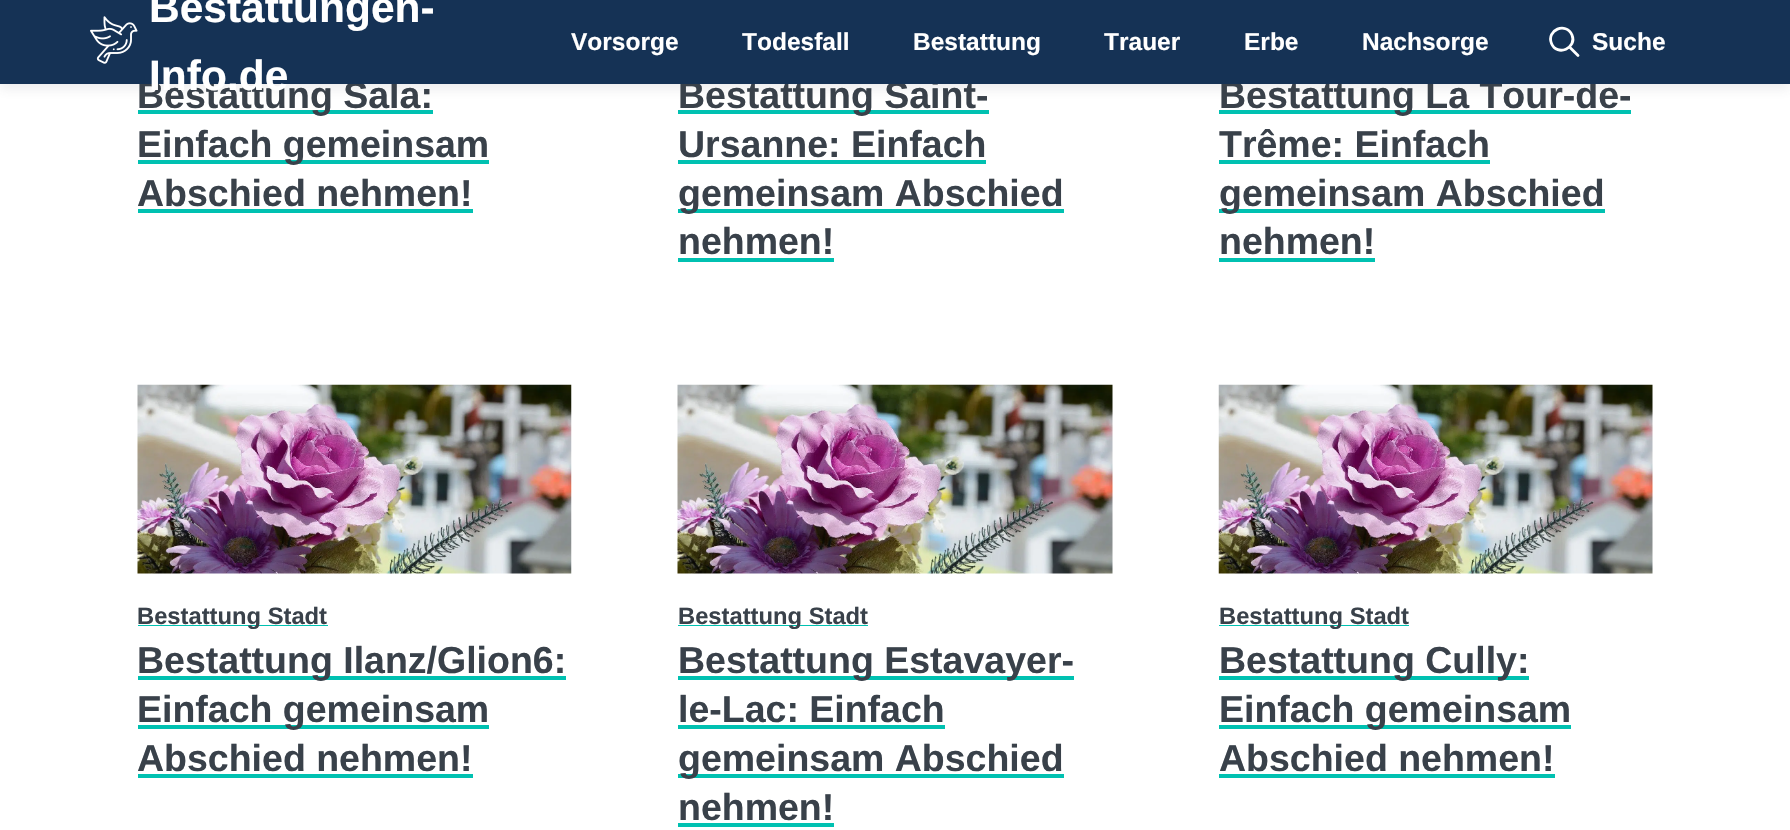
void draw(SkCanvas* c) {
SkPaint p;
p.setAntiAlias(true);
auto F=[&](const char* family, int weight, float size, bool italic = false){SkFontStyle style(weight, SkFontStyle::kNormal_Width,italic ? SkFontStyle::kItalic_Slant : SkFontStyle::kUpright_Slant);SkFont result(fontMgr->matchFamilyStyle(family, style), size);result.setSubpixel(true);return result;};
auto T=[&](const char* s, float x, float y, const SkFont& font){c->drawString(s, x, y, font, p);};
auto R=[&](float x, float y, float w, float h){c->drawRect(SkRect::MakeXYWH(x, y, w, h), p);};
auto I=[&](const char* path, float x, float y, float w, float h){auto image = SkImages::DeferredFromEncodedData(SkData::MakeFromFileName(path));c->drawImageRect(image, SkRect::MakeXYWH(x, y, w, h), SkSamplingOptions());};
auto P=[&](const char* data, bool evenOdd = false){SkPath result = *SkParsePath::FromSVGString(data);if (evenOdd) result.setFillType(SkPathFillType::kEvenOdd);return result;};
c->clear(0xffffffff);
p.setColor(0x1a43414f);
p.setMaskFilter(SkMaskFilter::MakeBlur(kNormal_SkBlurStyle, 5.5));
c->drawRect(SkRect::MakeXYWH(0,5,1790,84),p);
p.setMaskFilter(nullptr);
p.setColor(0xff00c1b1);
R(138,110,295,4);
auto f1 = F("Liberation Sans",700,37.5);
p.setColor(0xff39414a);
T("Bestattung Sala:",137,108,f1);
p.setColor(0xff00c1b1);
R(678,110,311,4);
p.setColor(0xff39414a);
T("Bestattung Saint-",678,108,f1);
p.setColor(0xff00c1b1);
R(1219,110,412,4);
p.setColor(0xff39414a);
T("Bestattung La Tour-de-",1219,108,f1);
p.setColor(0xff153255);
R(0,0,1790,84);
I("1.png",90,16,48,48);
auto f2 = F("Liberation Sans",700,42.5);
p.setColor(0xffffffff);
T("Bestattungen-",149,22,f2);
T("Info.de",149,90,f2);
auto f3 = F("Liberation Sans",700,24.5);
T("Vorsorge",571,50,f3);
T("Todesfall",742,50,f3);
T("Bestattung",913,50,f3);
T("Trauer",1104,50,f3);
T("Erbe",1244,50,f3);
T("Nachsorge",1362,50,f3);
p.setStroke(true);
p.setStrokeWidth(2.8);
p.setStrokeCap(SkPaint::kRound_Cap);
p.setStrokeJoin(SkPaint::kRound_Join);
c->drawPath(P("M1551.5 43.5c5.5 13.5 26 4.5 20.5-8.5c-6-13.5-26-5-20.5 8.5zm18 3.5l8.5 8.5"),p);
p.setStroke(false);
T("Suche",1592,50,f3);
p.setColor(0xff00c1b1);
R(138,160,351,4);
p.setColor(0xff39414a);
T("Einfach gemeinsam",137,157,f1);
T("Abschied nehmen!",137,206,f1);
p.setColor(0xff00c1b1);
R(138,209,335,4);
p.setColor(0xff39414a);
T("Ursanne: Einfach",678,157,f1);
p.setColor(0xff00c1b1);
R(678,160,308,4);
R(678,209,386,4);
p.setColor(0xff39414a);
T("gemeinsam Abschied",678,206,f1);
T("nehmen!",678,254,f1);
p.setColor(0xff00c1b1);
R(678,258,156,4);
p.setColor(0xff39414a);
T("Trême: Einfach",1219,157,f1);
p.setColor(0xff00c1b1);
R(1219,160,271,4);
R(1219,209,386,4);
p.setColor(0xff39414a);
T("gemeinsam Abschied",1219,206,f1);
T("nehmen!",1219,254,f1);
p.setColor(0xff00c1b1);
R(1219,258,156,4);
I("2.png",137,384,435,190);
R(138,625,190,1);
auto f4 = F("Liberation Sans",700,23.75);
p.setColor(0xff39414a);
T("Bestattung Stadt",137,624,f4);
p.setColor(0xff00c1b1);
R(138,676,428,4);
p.setColor(0xff39414a);
T("Bestattung Ilanz/Glion6:",137,673,f1);
p.setColor(0xff00c1b1);
R(138,725,351,4);
p.setColor(0xff39414a);
T("Einfach gemeinsam",137,722,f1);
T("Abschied nehmen!",137,771,f1);
p.setColor(0xff00c1b1);
R(138,774,335,4);
I("3.png",677,384,436,190);
R(678,625,190,1);
p.setColor(0xff39414a);
T("Bestattung Stadt",678,624,f4);
p.setColor(0xff00c1b1);
R(678,676,396,4);
p.setColor(0xff39414a);
T("Bestattung Estavayer-",678,673,f1);
T("le-Lac: Einfach",678,722,f1);
p.setColor(0xff00c1b1);
R(678,725,267,4);
R(678,774,386,4);
p.setColor(0xff39414a);
T("gemeinsam Abschied",678,771,f1);
T("nehmen!",678,820,f1);
p.setColor(0xff00c1b1);
R(678,823,156,4);
I("4.png",1218,384,435,190);
R(1219,625,190,1);
p.setColor(0xff39414a);
T("Bestattung Stadt",1219,624,f4);
p.setColor(0xff00c1b1);
R(1219,676,310,4);
p.setColor(0xff39414a);
T("Bestattung Cully:",1219,673,f1);
p.setColor(0xff00c1b1);
R(1219,725,352,4);
p.setColor(0xff39414a);
T("Einfach gemeinsam",1219,722,f1);
T("Abschied nehmen!",1219,771,f1);
p.setColor(0xff00c1b1);
R(1219,774,336,4);
}
